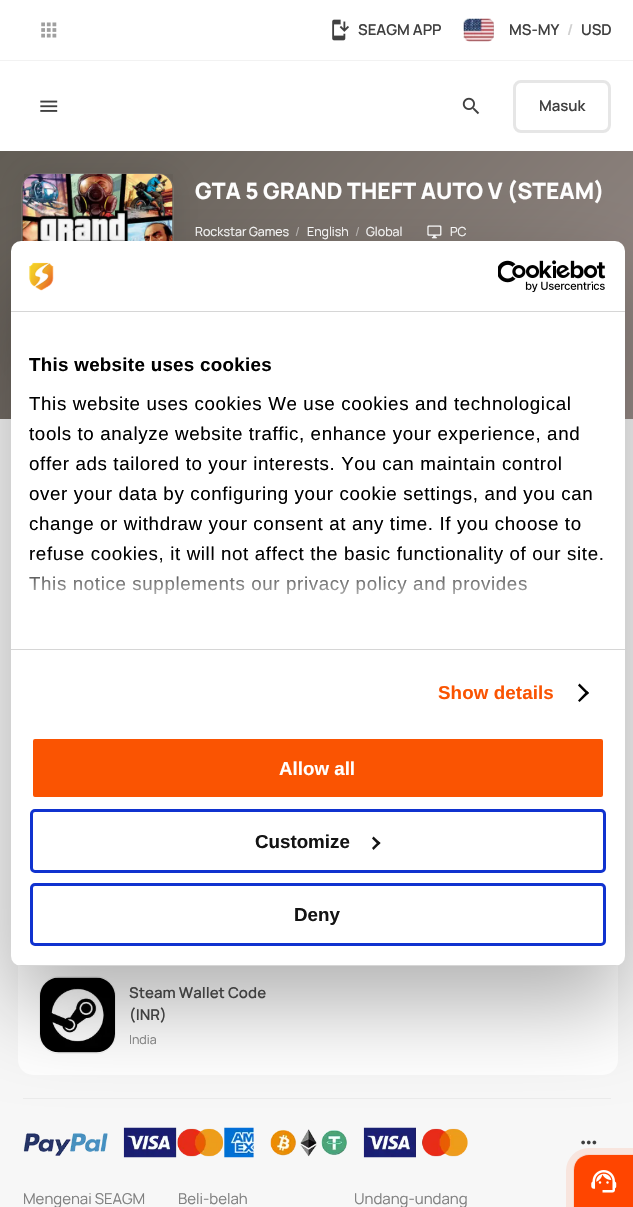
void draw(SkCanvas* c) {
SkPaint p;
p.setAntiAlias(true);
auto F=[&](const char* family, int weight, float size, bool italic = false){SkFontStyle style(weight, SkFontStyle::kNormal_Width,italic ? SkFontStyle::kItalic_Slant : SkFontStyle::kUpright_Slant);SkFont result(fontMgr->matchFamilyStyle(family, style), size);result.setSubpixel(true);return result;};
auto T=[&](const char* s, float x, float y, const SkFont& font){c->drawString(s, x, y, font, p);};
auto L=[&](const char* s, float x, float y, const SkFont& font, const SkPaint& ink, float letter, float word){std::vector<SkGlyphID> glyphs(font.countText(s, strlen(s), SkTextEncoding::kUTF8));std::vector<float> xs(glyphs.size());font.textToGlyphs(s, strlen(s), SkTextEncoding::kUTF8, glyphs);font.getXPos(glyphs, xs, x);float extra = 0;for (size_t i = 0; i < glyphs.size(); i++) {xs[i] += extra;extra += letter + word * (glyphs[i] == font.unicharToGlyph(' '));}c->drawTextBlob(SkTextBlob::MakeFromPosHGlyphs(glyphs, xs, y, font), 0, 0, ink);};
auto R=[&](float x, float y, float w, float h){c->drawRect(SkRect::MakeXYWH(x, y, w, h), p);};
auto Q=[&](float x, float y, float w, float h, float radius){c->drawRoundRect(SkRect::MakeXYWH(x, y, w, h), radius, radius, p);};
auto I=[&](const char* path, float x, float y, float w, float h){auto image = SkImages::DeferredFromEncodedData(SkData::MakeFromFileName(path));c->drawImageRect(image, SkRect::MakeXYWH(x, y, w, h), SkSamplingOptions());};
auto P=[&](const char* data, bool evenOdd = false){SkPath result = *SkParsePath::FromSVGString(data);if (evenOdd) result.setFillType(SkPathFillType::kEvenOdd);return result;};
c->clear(0xfff7f7f7);
{
const SkColor colors[] = {0xff625d55,0xff978b87};
const float stops[] = {0,1};
const SkPoint ends[] = {{92,60}, {542,510}};
p.setShader(SkGradientShader::MakeLinear(ends, colors, stops, 2, SkTileMode::kClamp));
p.setAlpha(255);
}
R(0,151,633,268);
p.setShader(nullptr);
p.setColor(0x1a000000);
p.setMaskFilter(SkMaskFilter::MakeBlur(kNormal_SkBlurStyle, 15));
c->drawRoundRect(SkRect::MakeXYWH(23,174,150,200),15,15,p);
p.setMaskFilter(nullptr);
p.setColor(0xffffffff);
R(0,0,633,151);
p.setColor(0xfff2f2f2);
c->drawPath(P("M0 60v1h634v-60v59z"),p);
I("1.png",41,22,16,16);
I("2.png",332,19,17,22);
auto f1 = F("Manrope",600,15);
p.setColor(0xff404040);
T("SEAGM APP",358,35,f1);
I("3.png",463,18,31,24);
p.setStroke(true);
p.setStrokeWidth(1);
p.setColor(0x1a000000);
c->drawRoundRect(SkRect::MakeXYWH(464.5,19.5,29,21),5.5,5.5,p);
p.setStroke(false);
p.setColor(0xff404040);
T("MS-MY",509,35,f1);
p.setColor(0xffcfcfcf);
T("/",567,35,f1);
p.setColor(0xff404040);
T("USD",581,35,f1);
I("4.png",40,100,18,12);
I("5.png",462,97,18,18);
p.setStroke(true);
p.setStrokeWidth(3);
p.setColor(0xffe6e6e6);
c->drawRoundRect(SkRect::MakeXYWH(514.5,81.5,95,50),6.5,6.5,p);
p.setStroke(false);
p.setColor(0xff404040);
T("Masuk",539,111,f1);
p.setStroke(true);
p.setStrokeWidth(1);
p.setColor(0x1affffff);
c->drawRoundRect(SkRect::MakeXYWH(21.5,173.5,152,201),15.5,15.5,p);
p.setStroke(false);
p.setColor(0x0d000000);
R(24,174,149,67);
I("6.png",22,173,151,68);
auto f2 = F("Manrope",800,22.5);
p.setColor(0xffffffff);
T("GTA 5 GRAND THEFT AUTO V (STEAM)",195,199,f2);
auto f3 = F("Manrope",400,12.5);
T("Rockstar Games",195,236,f3);
p.setColor(0xffbcb8b5);
T("/",295,236,f3);
p.setColor(0xffffffff);
T("English",307,236,f3);
p.setColor(0xffbcb8b5);
T("/",355,236,f3);
p.setColor(0xffffffff);
T("Global",366,236,f3);
I("7.png",427,225,15,14);
T("PC",450,236,f3);
Q(18,633,600,442,15);
p.setStroke(true);
p.setColor(0xfff2f2f2);
c->drawRoundRect(SkRect::MakeXYWH(39.5,976.5,76,77),19.5,19.5,p);
p.setStroke(false);
p.setColor(0xffffffff);
Q(40,978,75,75,19);
I("10.png",40,977,75,76);
p.setColor(0xffebebeb);
R(23,1098,588,1);
I("11.png",23,1133,85,23);
I("12.png",123,1127,131,31);
I("13.png",270,1129,77,28);
I("14.png",363,1127,105,31);
p.setColor(0x4d000000);
p.setMaskFilter(SkMaskFilter::MakeBlur(kNormal_SkBlurStyle, 42.5));
c->drawRoundRect(SkRect::MakeXYWH(11,281,614,725),10,10,p);
p.setMaskFilter(nullptr);
p.setColor(0xffffffff);
Q(11,241,614,725,10);
p.setColor(0xffd6d6d6);
R(11,311,614,1);
I("8.png",29,262,25,29);
I("9.png",498,260,108,33);
R(11,649,614,1);
auto f4 = F("Liberation Sans",700,18.75);
p.setColor(0xff000000);
L("This website uses cookies",29,371,f4,p,.3,0);
auto f5 = F("Liberation Sans",400,18.75);
L("This website uses cookies We use cookies and technological",29,410,f5,p,.62,0);
L("tools to analyze website traffic, enhance your experience, and",29,440,f5,p,.62,0);
L("offer ads tailored to your interests. You can maintain control",29,470,f5,p,.62,0);
L("over your data by configuring your cookie settings, and you can",29,500,f5,p,.62,0);
L("change or withdraw your consent at any time. If you choose to",29,530,f5,p,.62,0);
L("refuse cookies, it will not affect the basic functionality of our site.",29,560,f5,p,.62,0);
L("This notice supplements our privacy policy and provides",29,590,f5,p,.62,0);
{
const SkColor colors[] = {0xffffffff,0xccffffff,0x00ffffff};
const float stops[] = {0,.5,1};
const SkPoint ends[] = {{309,649}, {309,555}};
p.setShader(SkGradientShader::MakeLinear(ends, colors, stops, 3, SkTileMode::kClamp));
p.setAlpha(255);
}
R(29,556,574,38);
p.setShader(nullptr);
p.setColor(0xfffa5402);
L("Show details",438,699,f4,p,.1,0);
p.setColor(0xff000000);
c->drawPath(P("M579.5 683.5l9.5 9.5l-2 1.5l-9-9z"),p);
c->drawPath(P("M587 691l2 2l-9.5 9l-1.5-1.5z"),p);
c->save();
c->clipPath(P("M21 241h594c5.5 0 10 4.5 10 10v705c0 5.5-4.5 10-10 10h-594c-5.5 0-10-4.5-10-10v-705c0-5.5 4.5-10 10-10z"),true);
p.setColor(0xffd6d6d6);
R(11,965,614,1);
c->restore();
p.setColor(0xfffa5402);
c->drawRoundRect(SkRect::MakeXYWH(31.5,737.5,573,61),3.5,3.5,p);
p.setStroke(true);
p.setStrokeWidth(3);
p.setColor(0xffffffff);
c->drawRoundRect(SkRect::MakeXYWH(31.5,737.5,573,61),3.5,3.5,p);
p.setStroke(false);
T("Allow all",279,775,f4);
p.setStroke(true);
p.setColor(0xff1032cf);
c->drawRoundRect(SkRect::MakeXYWH(31.5,810.5,573,61),3.5,3.5,p);
p.setStroke(false);
p.setColor(0xff141414);
T("Customize",255,848,f4);
c->drawPath(P("M373.5 836.5l7 6.5l-2 2l-6.5-6.5z"),p);
c->drawPath(P("M378.5 841.5l2 1.5l-7 7l-1.5-2z"),p);
p.setStroke(true);
p.setColor(0xff1032cf);
c->drawRoundRect(SkRect::MakeXYWH(31.5,884.5,573,60),3.5,3.5,p);
p.setStroke(false);
p.setColor(0xff141414);
T("Deny",294,921,f4);
p.setColor(0xff404040);
T("Steam Wallet Code",129,998,f1);
T("(INR)",129,1020,f1);
p.setColor(0xff808080);
T("India",129,1044,f3);
I("15.png",581,1140,16,5);
auto f6 = F("Manrope",400,15);
T("Mengenai SEAGM",23,1204,f6);
T("Beli-belah",178,1204,f6);
T("Undang-undang",354,1204,f6);
p.setStroke(true);
p.setStrokeWidth(8);
p.setColor(0xfff8e5de);
c->drawPath(P("M589 1152h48v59h-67v-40c0-10.5 8.5-19 19-19z"),p);
p.setStrokeWidth(1);
p.setColor(0xfff9d5c8);
c->drawPath(P("M589 1154.5h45.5v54h-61v-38.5c0-8.5 7-15.5 15.5-15.5z"),p);
p.setStroke(false);
p.setColor(0xffff4500);
c->drawPath(P("M589 1155h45v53h-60v-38c0-8.5 6.5-15 15-15z"),p);
I("16.png",591,1170,26,23);
}
